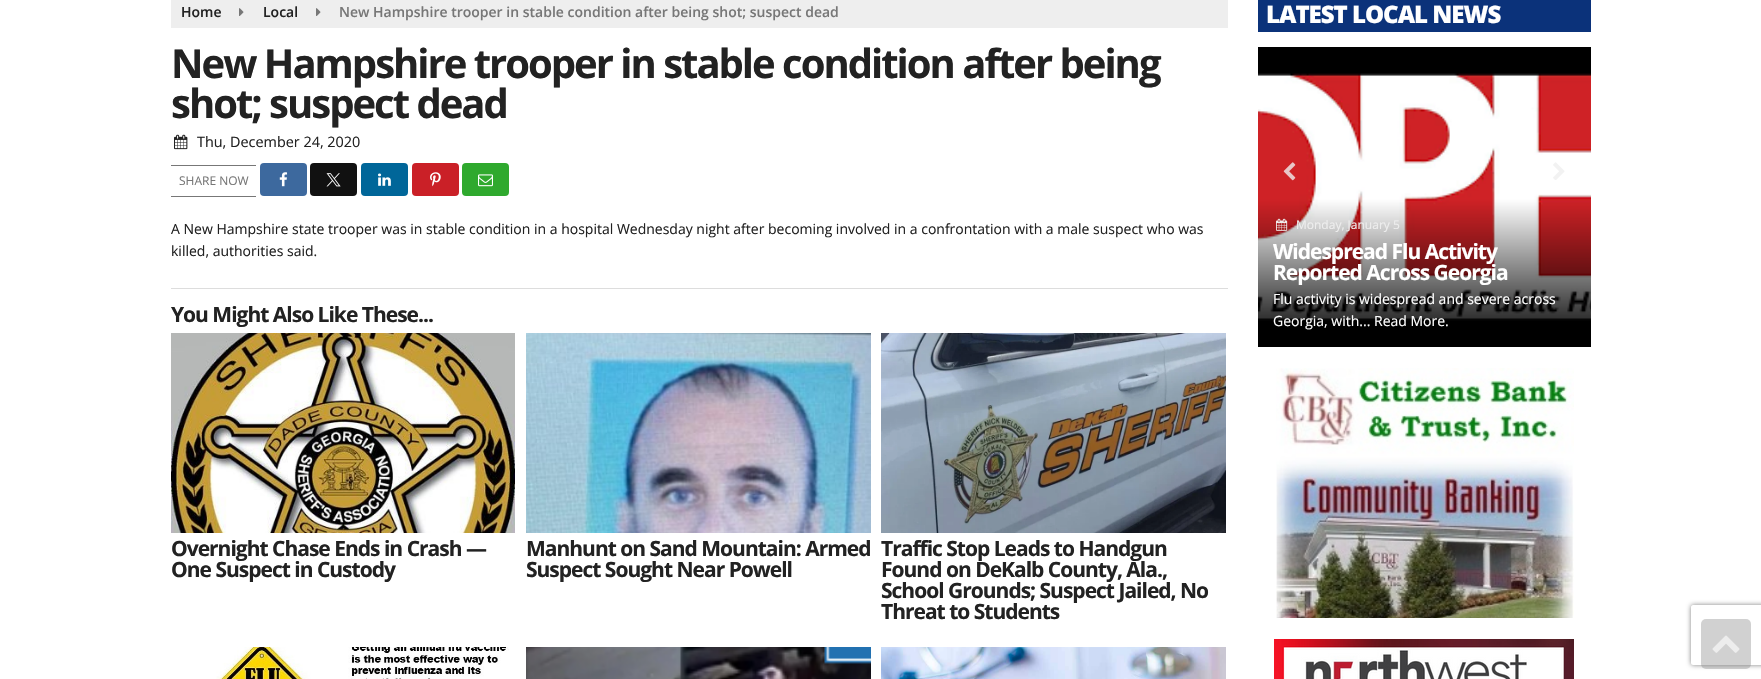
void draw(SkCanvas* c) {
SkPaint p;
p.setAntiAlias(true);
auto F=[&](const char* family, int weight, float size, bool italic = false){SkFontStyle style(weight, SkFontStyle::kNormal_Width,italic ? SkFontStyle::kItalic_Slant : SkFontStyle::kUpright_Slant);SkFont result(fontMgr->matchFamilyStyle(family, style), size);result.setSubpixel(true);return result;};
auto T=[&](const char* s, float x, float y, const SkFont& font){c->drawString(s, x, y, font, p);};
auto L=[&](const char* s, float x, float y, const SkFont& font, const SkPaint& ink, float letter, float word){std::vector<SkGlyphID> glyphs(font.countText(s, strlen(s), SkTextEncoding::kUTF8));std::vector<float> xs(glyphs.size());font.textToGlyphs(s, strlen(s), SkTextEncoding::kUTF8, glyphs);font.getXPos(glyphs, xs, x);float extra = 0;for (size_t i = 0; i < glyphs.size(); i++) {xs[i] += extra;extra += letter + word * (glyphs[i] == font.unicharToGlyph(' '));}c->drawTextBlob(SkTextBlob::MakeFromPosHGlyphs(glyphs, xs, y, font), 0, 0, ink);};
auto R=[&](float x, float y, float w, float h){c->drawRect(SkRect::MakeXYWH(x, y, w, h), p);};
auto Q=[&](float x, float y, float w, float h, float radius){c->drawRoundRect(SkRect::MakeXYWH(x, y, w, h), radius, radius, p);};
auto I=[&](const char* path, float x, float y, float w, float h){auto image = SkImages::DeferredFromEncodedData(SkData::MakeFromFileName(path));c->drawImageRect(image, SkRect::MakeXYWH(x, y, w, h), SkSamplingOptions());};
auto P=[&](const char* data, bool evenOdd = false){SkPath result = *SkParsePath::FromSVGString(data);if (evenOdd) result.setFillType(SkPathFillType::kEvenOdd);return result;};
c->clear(0xffffffff);
p.setColor(0xffeeeeee);
R(171,0,1057,28);
auto f1 = F("Open Sans",600,14);
p.setColor(0xff222222);
T("Home",181,17,f1);
I("1.png",239,8,5,8);
T("Local",263,17,f1);
I("1.png",316,8,5,8);
p.setColor(0xff777777);
T("New Hampshire trooper in stable condition after being shot; suspect dead",339,17,f1);
auto f2 = F("Open Sans",700,40);
p.setColor(0xff222222);
L("New Hampshire trooper in stable condition after being",171,78,f2,p,-2,0);
L("shot; suspect dead",171,118,f2,p,-2,0);
I("2.png",174,134,14,16);
auto f3 = F("Open Sans",400,14.4);
T("Thu, December 24, 2020",197,147,f3);
p.setColor(0xff777777);
R(171,165,85,1);
R(171,196,85,1);
auto f4 = F("Open Sans",400,12);
T("SHARE NOW",179,185,f4);
p.setColor(0xff3d699e);
Q(260,163,47,33,4);
I("3.png",279,172,9,15);
p.setColor(0xff111111);
Q(310,163,47,33,4);
I("4.png",326,173,15,14);
p.setColor(0xff006699);
Q(361,163,47,33,4);
I("5.png",378,173,13,13);
p.setColor(0xffca2027);
Q(412,163,47,33,4);
I("6.png",430,172,11,15);
p.setColor(0xff2fa92e);
Q(462,163,47,33,4);
I("7.png",478,174,15,13);
auto f5 = F("Open Sans",400,14);
p.setColor(0xff222222);
T("A New Hampshire state trooper was in stable condition in a hospital Wednesday night after becoming involved in a confrontation with a male suspect who was",171,234,f5);
T("killed, authorities said.",171,256,f5);
p.setColor(0xffdddddd);
R(171,288,1057,1);
auto f6 = F("Open Sans",700,21);
p.setColor(0xff222222);
L("You Might Also Like These...",171,322,f6,p,-1,0);
I("8.png",171,333,344,200);
L("Overnight Chase Ends in Crash —",171,556,f6,p,-1,0);
L("One Suspect in Custody",171,577,f6,p,-1,0);
I("9.png",526,333,345,200);
L("Manhunt on Sand Mountain: Armed",526,556,f6,p,-1,0);
L("Suspect Sought Near Powell",526,577,f6,p,-1,0);
I("10.png",881,333,345,200);
L("Traffic Stop Leads to Handgun",881,556,f6,p,-1,0);
L("Found on DeKalb County, Ala.,",881,577,f6,p,-1,0);
L("School Grounds; Suspect Jailed, No",881,598,f6,p,-1,0);
L("Threat to Students",881,619,f6,p,-1,0);
I("11.png",216,647,293,32);
I("12.png",526,647,345,32);
I("13.png",881,647,345,32);
p.setColor(0xff0b327a);
R(1258,0,333,32);
auto f7 = F("Open Sans",800,24);
p.setColor(0xffffffff);
L("LATEST LOCAL NEWS",1266,23,f7,p,-1,0);
I("16.png",1258,47,333,300);
I("14.png",1283,162,13,19);
I("15.png",1553,162,12,18);
I("17.png",1276,218,12,13);
p.setColor(0xffeeeeee);
T("Monday, January 5",1296,229,f4);
p.setColor(0xffffffff);
L("Widespread Flu Activity",1273,259,f6,p,-1,0);
L("Reported Across Georgia",1273,280,f6,p,-1,0);
T("Flu activity is widespread and severe across",1273,304,f5);
T("Georgia, with... Read More.",1273,326,f5);
I("18.png",1276,368,298,250);
I("19.png",1274,639,300,40);
p.setColor(0xffd1d1d1);
Q(1701,619,50,50,5);
I("20.png",1712,635,28,18);
c->save();
c->clipPath(P("M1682 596h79v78h-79zm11 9h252c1 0 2 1 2 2v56c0 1-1 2-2 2h-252c-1 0-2-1-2-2v-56c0-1 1-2 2-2z",true),true);
p.setColor(0xff808080);
p.setMaskFilter(SkMaskFilter::MakeBlur(kNormal_SkBlurStyle, 2.5));
c->drawRoundRect(SkRect::MakeXYWH(1691,605,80,60),2,2,p);
p.setMaskFilter(nullptr);
c->restore();
}
